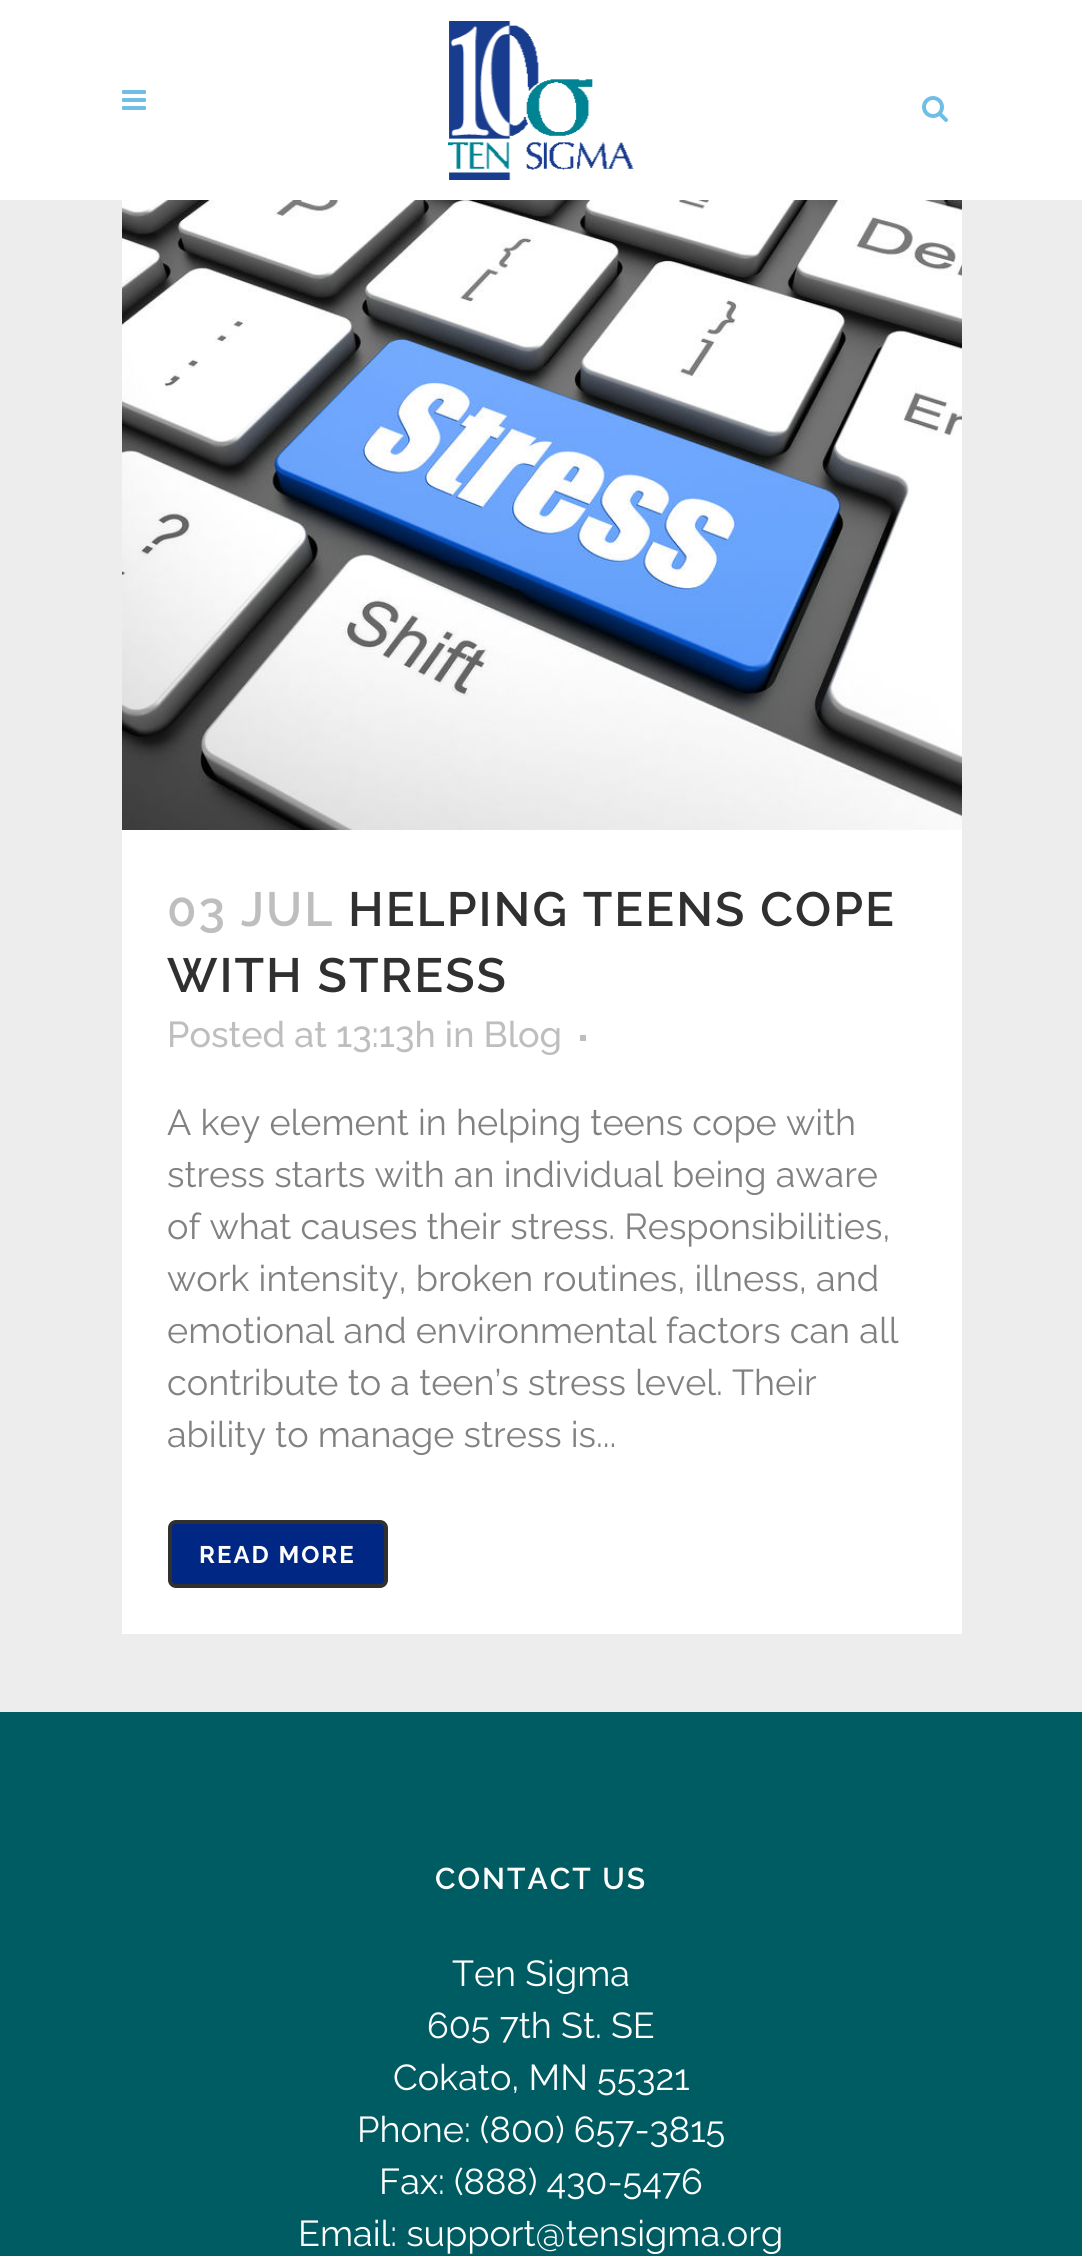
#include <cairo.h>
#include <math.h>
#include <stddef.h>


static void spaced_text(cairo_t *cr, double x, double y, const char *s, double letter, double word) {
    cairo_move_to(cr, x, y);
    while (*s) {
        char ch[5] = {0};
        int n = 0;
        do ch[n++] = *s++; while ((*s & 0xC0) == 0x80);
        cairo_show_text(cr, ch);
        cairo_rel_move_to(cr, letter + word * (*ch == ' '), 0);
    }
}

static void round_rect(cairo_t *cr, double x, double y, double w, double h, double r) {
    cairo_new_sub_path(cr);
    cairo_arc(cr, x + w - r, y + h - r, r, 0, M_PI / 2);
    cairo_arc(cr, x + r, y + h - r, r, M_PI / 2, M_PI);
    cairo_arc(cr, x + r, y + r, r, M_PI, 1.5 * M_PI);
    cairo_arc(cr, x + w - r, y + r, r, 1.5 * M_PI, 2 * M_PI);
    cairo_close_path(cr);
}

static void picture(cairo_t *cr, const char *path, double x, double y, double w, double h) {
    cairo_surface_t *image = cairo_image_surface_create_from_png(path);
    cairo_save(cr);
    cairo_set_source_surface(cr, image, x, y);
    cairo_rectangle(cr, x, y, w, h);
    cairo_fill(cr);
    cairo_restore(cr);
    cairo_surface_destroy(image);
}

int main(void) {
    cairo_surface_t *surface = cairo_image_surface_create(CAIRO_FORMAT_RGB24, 1082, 2256);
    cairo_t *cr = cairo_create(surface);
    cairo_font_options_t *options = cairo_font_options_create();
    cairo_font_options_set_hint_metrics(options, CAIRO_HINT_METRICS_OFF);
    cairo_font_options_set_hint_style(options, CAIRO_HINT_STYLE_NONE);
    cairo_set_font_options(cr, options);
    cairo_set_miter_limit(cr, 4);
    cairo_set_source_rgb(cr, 0.929, 0.929, 0.929);
    cairo_paint(cr);
    cairo_set_source_rgb(cr, 1, 1, 1);
    cairo_rectangle(cr, 0, 0, 1082, 200);
    cairo_fill(cr);
    picture(cr, "img1.png", 122, 90, 24, 20);
    picture(cr, "img2.png", 448, 21, 186, 159);
    picture(cr, "img3.png", 922, 96, 26, 26);
    picture(cr, "img4.png", 122, 200, 840, 630);
    cairo_rectangle(cr, 122, 830, 840, 804);
    cairo_fill(cr);
    cairo_select_font_face(cr, "Raleway SemiBold", CAIRO_FONT_SLANT_NORMAL, CAIRO_FONT_WEIGHT_NORMAL);
    cairo_set_font_size(cr, 48);
    cairo_set_source_rgb(cr, 0.745, 0.745, 0.745);
    spaced_text(cr, 167, 926, "03 JUL", 2, 0);
    cairo_set_source_rgb(cr, 0.188, 0.188, 0.188);
    spaced_text(cr, 348, 926, "HELPING TEENS COPE", 2, 0);
    spaced_text(cr, 167, 992, "WITH STRESS", 2, 0);
    cairo_select_font_face(cr, "Raleway Medium", CAIRO_FONT_SLANT_NORMAL, CAIRO_FONT_WEIGHT_NORMAL);
    cairo_set_font_size(cr, 36);
    cairo_set_source_rgb(cr, 0.745, 0.745, 0.745);
    cairo_move_to(cr, 167, 1047);
    cairo_show_text(cr, "Posted at 13:13h in Blog");
    cairo_rectangle(cr, 580, 1035, 6, 6);
    cairo_fill(cr);
    cairo_select_font_face(cr, "Raleway", CAIRO_FONT_SLANT_NORMAL, CAIRO_FONT_WEIGHT_NORMAL);
    cairo_set_source_rgb(cr, 0.506, 0.506, 0.506);
    cairo_move_to(cr, 167, 1135);
    cairo_show_text(cr, "A key element in helping teens cope with");
    cairo_move_to(cr, 167, 1187);
    cairo_show_text(cr, "stress starts with an individual being aware");
    cairo_move_to(cr, 167, 1239);
    cairo_show_text(cr, "of what causes their stress. Responsibilities,");
    cairo_move_to(cr, 167, 1291);
    cairo_show_text(cr, "work intensity, broken routines, illness, and");
    cairo_move_to(cr, 167, 1343);
    cairo_show_text(cr, "emotional and environmental factors can all");
    cairo_move_to(cr, 167, 1395);
    cairo_show_text(cr, "contribute to a teen’s stress level. Their");
    cairo_move_to(cr, 167, 1447);
    cairo_show_text(cr, "ability to manage stress is...");
    cairo_set_source_rgb(cr, 0, 0.153, 0.518);
    round_rect(cr, 170, 1522, 216, 64, 6);
    cairo_fill_preserve(cr);
    cairo_set_source_rgb(cr, 0.188, 0.188, 0.188);
    cairo_set_line_width(cr, 4);
    cairo_stroke(cr);
    cairo_select_font_face(cr, "Raleway", CAIRO_FONT_SLANT_NORMAL, CAIRO_FONT_WEIGHT_BOLD);
    cairo_set_font_size(cr, 24);
    cairo_set_source_rgb(cr, 1, 1, 1);
    spaced_text(cr, 199, 1563, "READ MORE", 2, 0);
    cairo_set_source_rgb(cr, 0, 0.361, 0.388);
    cairo_rectangle(cr, 0, 1712, 1082, 544);
    cairo_fill(cr);
    cairo_select_font_face(cr, "Raleway SemiBold", CAIRO_FONT_SLANT_NORMAL, CAIRO_FONT_WEIGHT_NORMAL);
    cairo_set_font_size(cr, 30);
    cairo_set_source_rgb(cr, 1, 1, 1);
    spaced_text(cr, 435, 1889, "CONTACT US", 2, 0);
    cairo_select_font_face(cr, "Raleway", CAIRO_FONT_SLANT_NORMAL, CAIRO_FONT_WEIGHT_NORMAL);
    cairo_set_font_size(cr, 36);
    cairo_move_to(cr, 452, 1986);
    cairo_show_text(cr, "Ten Sigma");
    cairo_move_to(cr, 427, 2038);
    cairo_show_text(cr, "605 7th St. SE");
    cairo_move_to(cr, 393, 2090);
    cairo_show_text(cr, "Cokato, MN 55321");
    cairo_move_to(cr, 357, 2142);
    cairo_show_text(cr, "Phone: (800) 657-3815");
    cairo_move_to(cr, 379, 2194);
    cairo_show_text(cr, "Fax: (888) 430-5476");
    cairo_move_to(cr, 298, 2246);
    cairo_show_text(cr, "Email: support@tensigma.org");
    cairo_surface_write_to_png(surface, "page.png");
    cairo_font_options_destroy(options);
    cairo_destroy(cr);
    cairo_surface_destroy(surface);
    return 0;
}
